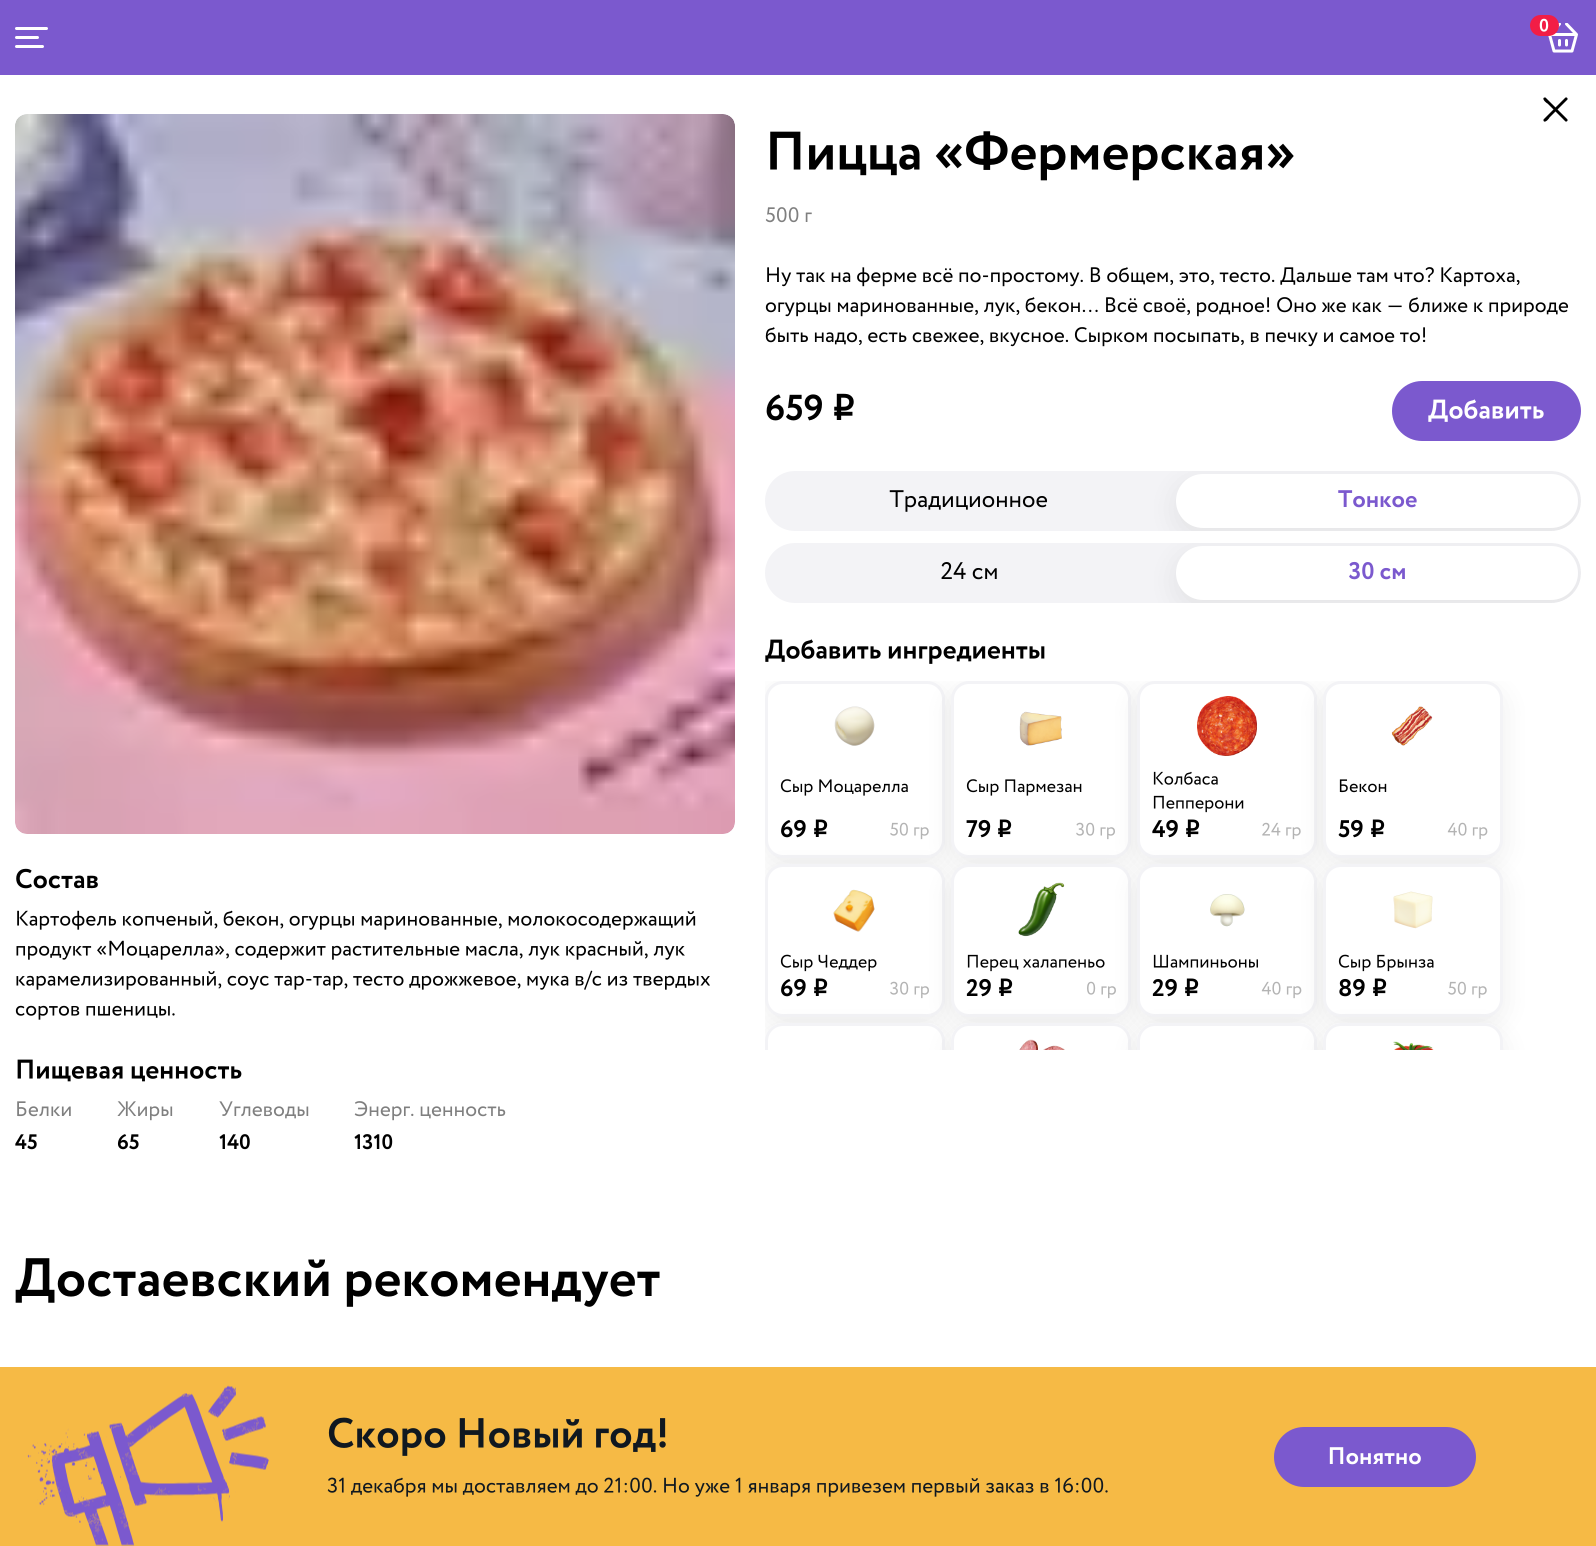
#include <cairo.h>
#include <math.h>
#include <stddef.h>


static void round_rect(cairo_t *cr, double x, double y, double w, double h, double r) {
    cairo_new_sub_path(cr);
    cairo_arc(cr, x + w - r, y + h - r, r, 0, M_PI / 2);
    cairo_arc(cr, x + r, y + h - r, r, M_PI / 2, M_PI);
    cairo_arc(cr, x + r, y + r, r, M_PI, 1.5 * M_PI);
    cairo_arc(cr, x + w - r, y + r, r, 1.5 * M_PI, 2 * M_PI);
    cairo_close_path(cr);
}

static void shadow(cairo_t *cr, double x, double y, double w, double h, double r, double blur, double alpha) {
    cairo_push_group_with_content(cr, CAIRO_CONTENT_ALPHA);
    cairo_set_operator(cr, CAIRO_OPERATOR_SOURCE);
    for (int i = 15; i >= -15 && fmin(w, h) + blur * i / 3 > 0; i -= 2) {
        double e = blur * i / 6;
        cairo_set_source_rgba(cr, 0, 0, 0, alpha * erfc((i - 1) / 8.5) / 2);
        round_rect(cr, x - e, y - e, w + 2 * e, h + 2 * e, fmax(0, fmin(r + e + blur * .6, fmin(w, h) / 2 + e)));
        cairo_fill(cr);
    }
    cairo_pattern_t *soft = cairo_pop_group(cr);
    cairo_mask(cr, soft);
    cairo_pattern_destroy(soft);
}

static void picture(cairo_t *cr, const char *path, double x, double y, double w, double h) {
    cairo_surface_t *image = cairo_image_surface_create_from_png(path);
    cairo_save(cr);
    cairo_set_source_surface(cr, image, x, y);
    cairo_rectangle(cr, x, y, w, h);
    cairo_fill(cr);
    cairo_restore(cr);
    cairo_surface_destroy(image);
}

int main(void) {
    cairo_surface_t *surface = cairo_image_surface_create(CAIRO_FORMAT_RGB24, 1596, 1546);
    cairo_t *cr = cairo_create(surface);
    cairo_font_options_t *options = cairo_font_options_create();
    cairo_font_options_set_hint_metrics(options, CAIRO_HINT_METRICS_OFF);
    cairo_font_options_set_hint_style(options, CAIRO_HINT_STYLE_NONE);
    cairo_set_font_options(cr, options);
    cairo_set_miter_limit(cr, 4);
    cairo_set_source_rgb(cr, 1, 1, 1);
    cairo_paint(cr);
    cairo_set_source_rgb(cr, 0.482, 0.349, 0.808);
    cairo_rectangle(cr, 0, 0, 1596, 75);
    cairo_fill(cr);
    cairo_set_source_rgb(cr, 1, 1, 1);
    round_rect(cr, 15, 27, 33, 3, 1.5);
    cairo_fill(cr);
    round_rect(cr, 15, 36, 24, 3, 1.5);
    cairo_fill(cr);
    round_rect(cr, 15, 45, 29, 3, 1.5);
    cairo_fill(cr);
    cairo_save(cr);
    cairo_rectangle(cr, 1548, 23, 30, 30);
    cairo_clip(cr);
    cairo_new_path(cr);
    cairo_move_to(cr, 1549.5, 34.5);
    cairo_line_to(cr, 1554, 51);
    cairo_line_to(cr, 1572, 51);
    cairo_line_to(cr, 1576.5, 34.5);
    cairo_move_to(cr, 1549.5, 34.5);
    cairo_line_to(cr, 1576.5, 34.5);
    cairo_move_to(cr, 1549.5, 34.5);
    cairo_line_to(cr, 1559.5, 24);
    cairo_move_to(cr, 1576.5, 34.5);
    cairo_line_to(cr, 1566.5, 24);
    cairo_set_line_width(cr, 3);
    cairo_set_line_cap(cr, CAIRO_LINE_CAP_ROUND);
    cairo_set_line_join(cr, CAIRO_LINE_JOIN_ROUND);
    cairo_stroke(cr);
    cairo_restore(cr);
    cairo_set_source_rgb(cr, 0.949, 0.114, 0.275);
    round_rect(cr, 1530, 15, 29, 21, 10.5);
    cairo_fill(cr);
    picture(cr, "img1.png", 1539, 18, 10, 14);
    cairo_new_path(cr);
    cairo_move_to(cr, 1559.5, 40.5);
    cairo_line_to(cr, 1559.5, 45);
    cairo_move_to(cr, 1566.5, 40.5);
    cairo_line_to(cr, 1566.5, 45);
    cairo_set_source_rgb(cr, 1, 1, 1);
    cairo_set_line_width(cr, 3);
    cairo_set_line_cap(cr, CAIRO_LINE_CAP_ROUND);
    cairo_set_line_join(cr, CAIRO_LINE_JOIN_ROUND);
    cairo_stroke(cr);
    cairo_set_source_rgb(cr, 0, 0, 0);
    cairo_new_path(cr);
    cairo_move_to(cr, 1546, 98);
    cairo_line_to(cr, 1567.5, 119.5);
    cairo_curve_to(cr, 1568, 120.5, 1567, 122, 1565.5, 121.5);
    cairo_line_to(cr, 1547.5, 103.5);
    cairo_curve_to(cr, 1547, 103.5, 1542.5, 100, 1543.5, 98);
    cairo_curve_to(cr, 1544, 97.5, 1545.5, 97, 1546, 98);
    cairo_close_path(cr);
    cairo_fill(cr);
    cairo_new_path(cr);
    cairo_move_to(cr, 1544, 119);
    cairo_line_to(cr, 1565.5, 97.5);
    cairo_curve_to(cr, 1566.5, 97, 1568, 98, 1567.5, 99.5);
    cairo_line_to(cr, 1549.5, 117.5);
    cairo_curve_to(cr, 1549.5, 118, 1546, 122.5, 1544, 121.5);
    cairo_curve_to(cr, 1543.5, 121, 1543, 119.5, 1544, 119);
    cairo_close_path(cr);
    cairo_fill(cr);
    cairo_set_source_rgb(cr, 0.953, 0.953, 0.961);
    round_rect(cr, 15, 114, 720, 720, 12);
    cairo_fill(cr);
    picture(cr, "img2.png", 15, 114, 720, 720);
    picture(cr, "img3.png", 16, 868, 82, 21);
    picture(cr, "img4.png", 17, 910, 679, 20);
    picture(cr, "img5.png", 16, 940, 669, 20);
    picture(cr, "img6.png", 16, 970, 694, 20);
    picture(cr, "img7.png", 15, 1005, 160, 15);
    picture(cr, "img8.png", 17, 1059, 225, 23);
    picture(cr, "img9.png", 17, 1101, 54, 16);
    picture(cr, "img10.png", 15, 1134, 22, 16);
    picture(cr, "img11.png", 117, 1101, 56, 20);
    picture(cr, "img12.png", 117, 1134, 22, 16);
    picture(cr, "img13.png", 219, 1101, 90, 18);
    picture(cr, "img14.png", 219, 1134, 31, 16);
    picture(cr, "img15.png", 354, 1101, 152, 20);
    picture(cr, "img16.png", 354, 1134, 39, 16);
    picture(cr, "img17.png", 770, 131, 524, 50);
    picture(cr, "img18.png", 765, 207, 47, 16);
    picture(cr, "img19.png", 767, 267, 753, 20);
    picture(cr, "img20.png", 765, 297, 804, 20);
    picture(cr, "img21.png", 765, 327, 661, 20);
    picture(cr, "img22.png", 766, 394, 56, 27);
    cairo_select_font_face(cr, "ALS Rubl", CAIRO_FONT_SLANT_NORMAL, CAIRO_FONT_WEIGHT_BOLD);
    cairo_set_font_size(cr, 36);
    cairo_set_source_rgb(cr, 0, 0, 0);
    cairo_move_to(cr, 831, 420);
    cairo_show_text(cr, "i");
    cairo_set_source_rgb(cr, 0.482, 0.349, 0.808);
    round_rect(cr, 1392, 381, 189, 60, 30);
    cairo_fill(cr);
    picture(cr, "img23.png", 1428, 399, 116, 23);
    cairo_set_source_rgb(cr, 0.953, 0.953, 0.961);
    round_rect(cr, 765, 471, 816, 60, 30);
    cairo_fill(cr);
    picture(cr, "img24.png", 889, 490, 159, 22);
    cairo_save(cr);
    round_rect(cr, 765, 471, 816, 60, 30);
    cairo_clip(cr);
    cairo_set_source_rgb(cr, 0, 0, 0);
    shadow(cr, 1176, 482, 402, 54, 27, 15, 0.07);
    cairo_restore(cr);
    cairo_set_source_rgb(cr, 1, 1, 1);
    round_rect(cr, 1176, 474, 402, 54, 27);
    cairo_fill(cr);
    picture(cr, "img25.png", 1338, 490, 79, 18);
    cairo_set_source_rgb(cr, 0.953, 0.953, 0.961);
    round_rect(cr, 765, 543, 816, 60, 30);
    cairo_fill(cr);
    cairo_save(cr);
    round_rect(cr, 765, 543, 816, 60, 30);
    cairo_clip(cr);
    cairo_set_source_rgb(cr, 0, 0, 0);
    shadow(cr, 1176, 554, 402, 54, 27, 15, 0.07);
    cairo_restore(cr);
    cairo_set_source_rgb(cr, 1, 1, 1);
    round_rect(cr, 1176, 546, 402, 54, 27);
    cairo_fill(cr);
    picture(cr, "img26.png", 941, 562, 56, 18);
    picture(cr, "img27.png", 1349, 561, 56, 19);
    picture(cr, "img28.png", 765, 639, 280, 25);
    cairo_save(cr);
    cairo_rectangle(cr, 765, 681, 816, 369);
    cairo_clip(cr);
    cairo_set_source_rgb(cr, 0, 0, 0);
    shadow(cr, 765, 689, 180, 177, 18, 15, 0.07);
    cairo_restore(cr);
    round_rect(cr, 766.5, 682.5, 177, 174, 16.5);
    cairo_fill_preserve(cr);
    cairo_set_source_rgb(cr, 0.953, 0.953, 0.961);
    cairo_set_line_cap(cr, CAIRO_LINE_CAP_BUTT);
    cairo_set_line_join(cr, CAIRO_LINE_JOIN_MITER);
    cairo_stroke(cr);
    picture(cr, "img29.png", 834, 706, 41, 40);
    picture(cr, "img30.png", 780, 779, 128, 17);
    picture(cr, "img31.png", 781, 819, 25, 19);
    cairo_set_font_size(cr, 24);
    cairo_set_source_rgb(cr, 0, 0, 0);
    cairo_move_to(cr, 812, 837);
    cairo_show_text(cr, "i");
    picture(cr, "img32.png", 890, 822, 39, 18);
    cairo_save(cr);
    cairo_rectangle(cr, 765, 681, 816, 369);
    cairo_clip(cr);
    cairo_set_source_rgb(cr, 0, 0, 0);
    shadow(cr, 951, 689, 180, 177, 18, 15, 0.07);
    cairo_restore(cr);
    cairo_set_source_rgb(cr, 1, 1, 1);
    round_rect(cr, 952.5, 682.5, 177, 174, 16.5);
    cairo_fill_preserve(cr);
    cairo_set_source_rgb(cr, 0.953, 0.953, 0.961);
    cairo_stroke(cr);
    picture(cr, "img33.png", 1019, 711, 43, 35);
    picture(cr, "img34.png", 966, 779, 116, 17);
    picture(cr, "img35.png", 966, 819, 25, 19);
    cairo_set_source_rgb(cr, 0, 0, 0);
    cairo_move_to(cr, 996, 837);
    cairo_show_text(cr, "i");
    picture(cr, "img36.png", 1076, 822, 39, 18);
    cairo_save(cr);
    cairo_rectangle(cr, 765, 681, 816, 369);
    cairo_clip(cr);
    cairo_set_source_rgb(cr, 0, 0, 0);
    shadow(cr, 1137, 689, 180, 177, 18, 15, 0.07);
    cairo_restore(cr);
    cairo_set_source_rgb(cr, 1, 1, 1);
    round_rect(cr, 1138.5, 682.5, 177, 174, 16.5);
    cairo_fill_preserve(cr);
    cairo_set_source_rgb(cr, 0.953, 0.953, 0.961);
    cairo_stroke(cr);
    picture(cr, "img37.png", 1197, 696, 60, 60);
    picture(cr, "img38.png", 1153, 771, 65, 14);
    picture(cr, "img39.png", 1153, 795, 91, 18);
    picture(cr, "img40.png", 1152, 819, 26, 19);
    cairo_set_source_rgb(cr, 0, 0, 0);
    cairo_move_to(cr, 1184, 837);
    cairo_show_text(cr, "i");
    picture(cr, "img41.png", 1262, 822, 39, 18);
    cairo_save(cr);
    cairo_rectangle(cr, 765, 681, 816, 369);
    cairo_clip(cr);
    cairo_set_source_rgb(cr, 0, 0, 0);
    shadow(cr, 1323, 689, 180, 177, 18, 15, 0.07);
    cairo_restore(cr);
    cairo_set_source_rgb(cr, 1, 1, 1);
    round_rect(cr, 1324.5, 682.5, 177, 174, 16.5);
    cairo_fill_preserve(cr);
    cairo_set_source_rgb(cr, 0.953, 0.953, 0.961);
    cairo_stroke(cr);
    picture(cr, "img42.png", 1391, 706, 42, 40);
    picture(cr, "img43.png", 1339, 779, 48, 14);
    picture(cr, "img44.png", 1338, 819, 25, 19);
    cairo_set_source_rgb(cr, 0, 0, 0);
    cairo_move_to(cr, 1369, 837);
    cairo_show_text(cr, "i");
    picture(cr, "img45.png", 1447, 822, 41, 18);
    cairo_save(cr);
    cairo_rectangle(cr, 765, 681, 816, 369);
    cairo_clip(cr);
    cairo_set_source_rgb(cr, 0, 0, 0);
    shadow(cr, 765, 872, 180, 153, 18, 15, 0.07);
    cairo_restore(cr);
    cairo_set_source_rgb(cr, 1, 1, 1);
    round_rect(cr, 766.5, 865.5, 177, 150, 16.5);
    cairo_fill_preserve(cr);
    cairo_set_source_rgb(cr, 0.953, 0.953, 0.961);
    cairo_stroke(cr);
    picture(cr, "img46.png", 833, 889, 42, 43);
    picture(cr, "img47.png", 780, 954, 97, 18);
    picture(cr, "img31.png", 781, 978, 25, 19);
    cairo_set_source_rgb(cr, 0, 0, 0);
    cairo_move_to(cr, 812, 996);
    cairo_show_text(cr, "i");
    picture(cr, "img36.png", 890, 981, 39, 18);
    cairo_set_source_rgb(cr, 0, 0, 0);
    shadow(cr, 951, 872, 180, 153, 18, 15, 0.07);
    cairo_set_source_rgb(cr, 1, 1, 1);
    round_rect(cr, 952.5, 865.5, 177, 150, 16.5);
    cairo_fill_preserve(cr);
    cairo_set_source_rgb(cr, 0.953, 0.953, 0.961);
    cairo_stroke(cr);
    picture(cr, "img48.png", 1018, 882, 47, 55);
    picture(cr, "img49.png", 967, 954, 138, 18);
    picture(cr, "img50.png", 966, 978, 25, 19);
    cairo_set_source_rgb(cr, 0, 0, 0);
    cairo_move_to(cr, 997, 996);
    cairo_show_text(cr, "i");
    picture(cr, "img51.png", 1087, 981, 29, 18);
    cairo_set_source_rgb(cr, 0, 0, 0);
    shadow(cr, 1137, 872, 180, 153, 18, 15, 0.07);
    cairo_set_source_rgb(cr, 1, 1, 1);
    round_rect(cr, 1138.5, 865.5, 177, 150, 16.5);
    cairo_fill_preserve(cr);
    cairo_set_source_rgb(cr, 0.953, 0.953, 0.961);
    cairo_stroke(cr);
    picture(cr, "img52.png", 1210, 894, 35, 33);
    picture(cr, "img53.png", 1153, 954, 105, 14);
    picture(cr, "img50.png", 1152, 978, 25, 19);
    cairo_set_source_rgb(cr, 0, 0, 0);
    cairo_move_to(cr, 1183, 996);
    cairo_show_text(cr, "i");
    picture(cr, "img45.png", 1261, 981, 41, 18);
    cairo_set_source_rgb(cr, 0, 0, 0);
    shadow(cr, 1323, 872, 180, 153, 18, 15, 0.07);
    cairo_set_source_rgb(cr, 1, 1, 1);
    round_rect(cr, 1324.5, 865.5, 177, 150, 16.5);
    cairo_fill_preserve(cr);
    cairo_set_source_rgb(cr, 0.953, 0.953, 0.961);
    cairo_stroke(cr);
    picture(cr, "img54.png", 1393, 891, 40, 38);
    picture(cr, "img55.png", 1338, 954, 96, 18);
    picture(cr, "img56.png", 1339, 978, 26, 19);
    cairo_set_source_rgb(cr, 0, 0, 0);
    cairo_move_to(cr, 1371, 996);
    cairo_show_text(cr, "i");
    picture(cr, "img32.png", 1448, 981, 39, 18);
    cairo_save(cr);
    cairo_rectangle(cr, 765, 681, 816, 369);
    cairo_clip(cr);
    cairo_set_source_rgb(cr, 0, 0, 0);
    shadow(cr, 765, 1031, 180, 201, 18, 15, 0.07);
    cairo_restore(cr);
    cairo_set_source_rgb(cr, 1, 1, 1);
    cairo_new_path(cr);
    cairo_move_to(cr, 783, 1023);
    cairo_line_to(cr, 927, 1023);
    cairo_curve_to(cr, 937, 1023, 945, 1031, 945, 1041);
    cairo_line_to(cr, 945, 1050);
    cairo_line_to(cr, 765, 1050);
    cairo_line_to(cr, 765, 1041);
    cairo_curve_to(cr, 765, 1031, 773, 1023, 783, 1023);
    cairo_close_path(cr);
    cairo_fill(cr);
    cairo_save(cr);
    cairo_rectangle(cr, 765, 681, 816, 369);
    cairo_clip(cr);
    round_rect(cr, 766.5, 1024.5, 177, 198, 16.5);
    cairo_set_source_rgb(cr, 0.953, 0.953, 0.961);
    cairo_stroke(cr);
    cairo_restore(cr);
    cairo_save(cr);
    cairo_rectangle(cr, 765, 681, 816, 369);
    cairo_clip(cr);
    cairo_set_source_rgb(cr, 0, 0, 0);
    shadow(cr, 951, 1031, 180, 201, 18, 15, 0.07);
    cairo_restore(cr);
    cairo_new_path(cr);
    cairo_move_to(cr, 969, 1023);
    cairo_line_to(cr, 1113, 1023);
    cairo_curve_to(cr, 1123, 1023, 1131, 1031, 1131, 1041);
    cairo_line_to(cr, 1131, 1050);
    cairo_line_to(cr, 951, 1050);
    cairo_line_to(cr, 951, 1041);
    cairo_curve_to(cr, 951, 1031, 959, 1023, 969, 1023);
    cairo_close_path(cr);
    cairo_fill(cr);
    cairo_save(cr);
    cairo_rectangle(cr, 765, 681, 816, 369);
    cairo_clip(cr);
    round_rect(cr, 952.5, 1024.5, 177, 198, 16.5);
    cairo_set_source_rgb(cr, 0.953, 0.953, 0.961);
    cairo_stroke(cr);
    cairo_restore(cr);
    picture(cr, "img57.png", 1019, 1039, 46, 11);
    cairo_save(cr);
    cairo_rectangle(cr, 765, 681, 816, 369);
    cairo_clip(cr);
    cairo_set_source_rgb(cr, 0, 0, 0);
    shadow(cr, 1137, 1031, 180, 201, 18, 15, 0.07);
    cairo_restore(cr);
    cairo_new_path(cr);
    cairo_move_to(cr, 1155, 1023);
    cairo_line_to(cr, 1299, 1023);
    cairo_curve_to(cr, 1309, 1023, 1317, 1031, 1317, 1041);
    cairo_line_to(cr, 1317, 1050);
    cairo_line_to(cr, 1137, 1050);
    cairo_line_to(cr, 1137, 1041);
    cairo_curve_to(cr, 1137, 1031, 1145, 1023, 1155, 1023);
    cairo_close_path(cr);
    cairo_fill(cr);
    cairo_save(cr);
    cairo_rectangle(cr, 765, 681, 816, 369);
    cairo_clip(cr);
    round_rect(cr, 1138.5, 1024.5, 177, 198, 16.5);
    cairo_set_source_rgb(cr, 0.953, 0.953, 0.961);
    cairo_stroke(cr);
    cairo_restore(cr);
    cairo_save(cr);
    cairo_rectangle(cr, 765, 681, 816, 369);
    cairo_clip(cr);
    cairo_set_source_rgb(cr, 0, 0, 0);
    shadow(cr, 1323, 1031, 180, 201, 18, 15, 0.07);
    cairo_restore(cr);
    cairo_new_path(cr);
    cairo_move_to(cr, 1341, 1023);
    cairo_line_to(cr, 1485, 1023);
    cairo_curve_to(cr, 1495, 1023, 1503, 1031, 1503, 1041);
    cairo_line_to(cr, 1503, 1050);
    cairo_line_to(cr, 1323, 1050);
    cairo_line_to(cr, 1323, 1041);
    cairo_curve_to(cr, 1323, 1031, 1331, 1023, 1341, 1023);
    cairo_close_path(cr);
    cairo_fill(cr);
    cairo_save(cr);
    cairo_rectangle(cr, 765, 681, 816, 369);
    cairo_clip(cr);
    round_rect(cr, 1324.5, 1024.5, 177, 198, 16.5);
    cairo_set_source_rgb(cr, 0.953, 0.953, 0.961);
    cairo_stroke(cr);
    cairo_restore(cr);
    picture(cr, "img58.png", 1393, 1041, 41, 9);
    picture(cr, "img59.png", 15, 1258, 645, 49);
    cairo_set_source_rgb(cr, 0.961, 0.729, 0.271);
    cairo_rectangle(cr, 0, 1367, 1596, 179);
    cairo_fill(cr);
    picture(cr, "img60.png", 27, 1385, 242, 161);
    picture(cr, "img61.png", 328, 1417, 338, 39);
    picture(cr, "img62.png", 327, 1477, 781, 20);
    cairo_set_source_rgb(cr, 0.482, 0.349, 0.808);
    round_rect(cr, 1274, 1427, 202, 60, 30);
    cairo_fill(cr);
    picture(cr, "img63.png", 1329, 1447, 92, 18);
    cairo_surface_write_to_png(surface, "page.png");
    cairo_font_options_destroy(options);
    cairo_destroy(cr);
    cairo_surface_destroy(surface);
    return 0;
}
